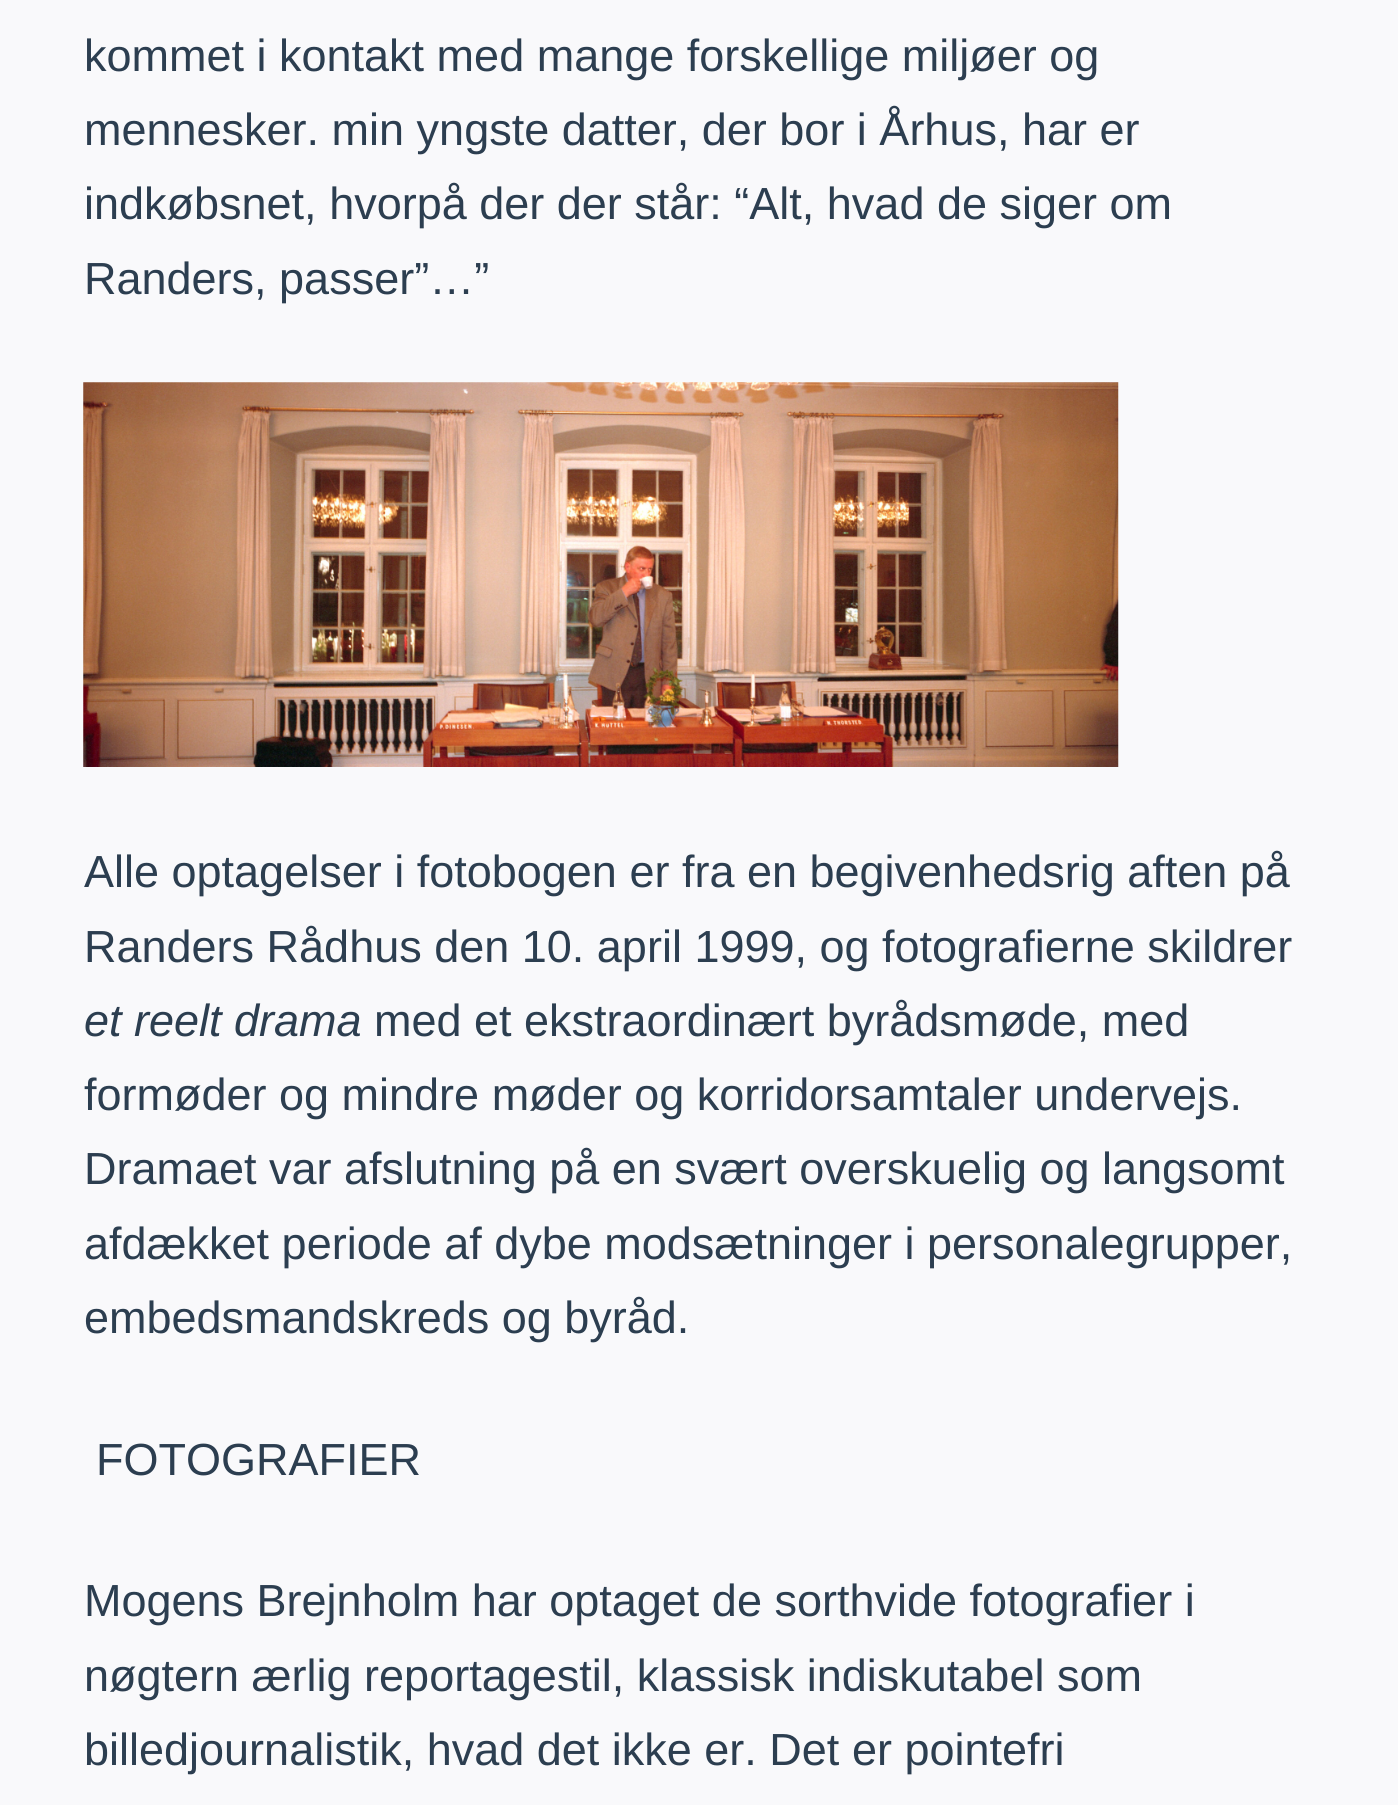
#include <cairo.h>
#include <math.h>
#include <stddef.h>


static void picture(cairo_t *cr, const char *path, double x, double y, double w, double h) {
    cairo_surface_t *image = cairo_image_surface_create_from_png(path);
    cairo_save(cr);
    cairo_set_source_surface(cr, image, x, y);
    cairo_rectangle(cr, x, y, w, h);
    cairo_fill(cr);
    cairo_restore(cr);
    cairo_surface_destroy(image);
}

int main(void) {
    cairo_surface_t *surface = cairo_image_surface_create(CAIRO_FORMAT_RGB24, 1398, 1805);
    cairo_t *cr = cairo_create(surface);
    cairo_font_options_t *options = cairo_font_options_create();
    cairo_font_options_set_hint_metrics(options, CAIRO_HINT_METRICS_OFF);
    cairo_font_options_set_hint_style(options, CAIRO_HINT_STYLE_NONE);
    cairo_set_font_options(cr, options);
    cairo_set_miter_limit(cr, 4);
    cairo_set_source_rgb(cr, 0.973, 0.976, 0.984);
    cairo_paint(cr);
    cairo_select_font_face(cr, "Liberation Sans", CAIRO_FONT_SLANT_NORMAL, CAIRO_FONT_WEIGHT_NORMAL);
    cairo_set_font_size(cr, 45);
    cairo_set_source_rgb(cr, 0.173, 0.243, 0.314);
    cairo_move_to(cr, 84, 71);
    cairo_show_text(cr, "kommet i kontakt med mange forskellige miljøer og");
    cairo_move_to(cr, 84, 145);
    cairo_show_text(cr, "mennesker. min yngste datter, der bor i Århus, har er");
    cairo_move_to(cr, 84, 219);
    cairo_show_text(cr, "indkøbsnet, hvorpå der der står: “Alt, hvad de siger om");
    cairo_move_to(cr, 84, 294);
    cairo_show_text(cr, "Randers, passer”…”");
    picture(cr, "img1.png", 83, 382, 1036, 385);
    cairo_move_to(cr, 84, 887);
    cairo_show_text(cr, "Alle optagelser i fotobogen er fra en begivenhedsrig aften på");
    cairo_move_to(cr, 84, 962);
    cairo_show_text(cr, "Randers Rådhus den 10. april 1999, og fotografierne skildrer");
    cairo_select_font_face(cr, "Liberation Sans", CAIRO_FONT_SLANT_ITALIC, CAIRO_FONT_WEIGHT_NORMAL);
    cairo_move_to(cr, 84, 1036);
    cairo_show_text(cr, "et reelt drama");
    cairo_select_font_face(cr, "Liberation Sans", CAIRO_FONT_SLANT_NORMAL, CAIRO_FONT_WEIGHT_NORMAL);
    cairo_move_to(cr, 374, 1036);
    cairo_show_text(cr, "med et ekstraordinært byrådsmøde, med");
    cairo_move_to(cr, 84, 1110);
    cairo_show_text(cr, "formøder og mindre møder og korridorsamtaler undervejs.");
    cairo_move_to(cr, 84, 1184);
    cairo_show_text(cr, "Dramaet var afslutning på en svært overskuelig og langsomt");
    cairo_move_to(cr, 84, 1259);
    cairo_show_text(cr, "afdækket periode af dybe modsætninger i personalegrupper,");
    cairo_move_to(cr, 84, 1333);
    cairo_show_text(cr, "embedsmandskreds og byråd.");
    cairo_move_to(cr, 96, 1475);
    cairo_show_text(cr, "FOTOGRAFIER");
    cairo_move_to(cr, 84, 1616);
    cairo_show_text(cr, "Mogens Brejnholm har optaget de sorthvide fotografier i");
    cairo_move_to(cr, 84, 1691);
    cairo_show_text(cr, "nøgtern ærlig reportagestil, klassisk indiskutabel som");
    cairo_move_to(cr, 84, 1765);
    cairo_show_text(cr, "billedjournalistik, hvad det ikke er. Det er pointefri");
    cairo_surface_write_to_png(surface, "page.png");
    cairo_font_options_destroy(options);
    cairo_destroy(cr);
    cairo_surface_destroy(surface);
    return 0;
}
